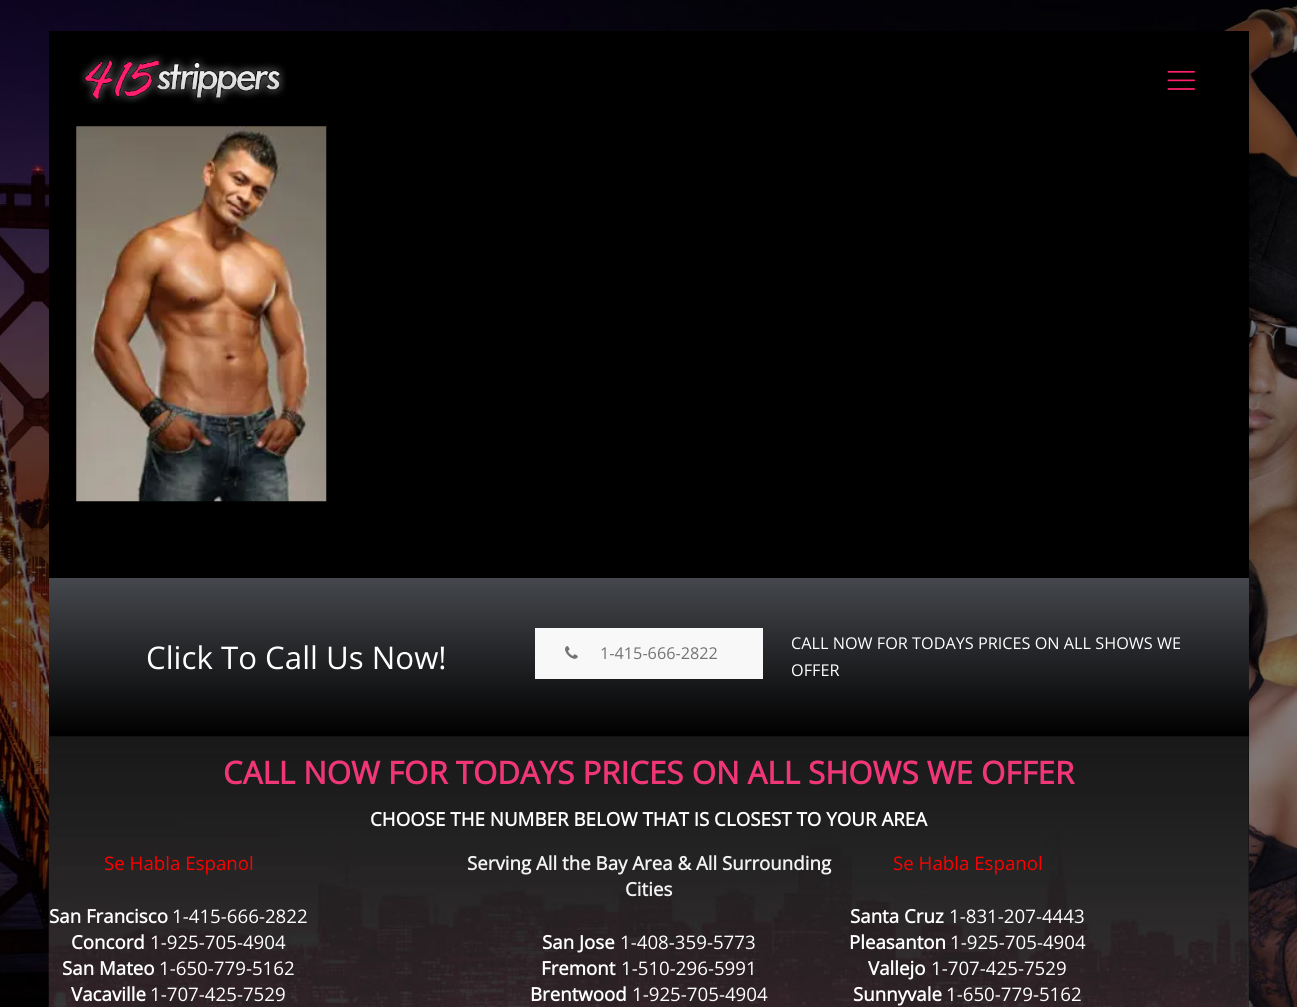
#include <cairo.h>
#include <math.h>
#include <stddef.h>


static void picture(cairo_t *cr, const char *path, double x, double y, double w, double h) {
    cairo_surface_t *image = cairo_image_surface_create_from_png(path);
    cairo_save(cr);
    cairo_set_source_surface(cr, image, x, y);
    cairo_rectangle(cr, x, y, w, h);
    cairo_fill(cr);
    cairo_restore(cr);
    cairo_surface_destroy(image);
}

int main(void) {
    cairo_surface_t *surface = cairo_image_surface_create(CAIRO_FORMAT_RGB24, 1297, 1007);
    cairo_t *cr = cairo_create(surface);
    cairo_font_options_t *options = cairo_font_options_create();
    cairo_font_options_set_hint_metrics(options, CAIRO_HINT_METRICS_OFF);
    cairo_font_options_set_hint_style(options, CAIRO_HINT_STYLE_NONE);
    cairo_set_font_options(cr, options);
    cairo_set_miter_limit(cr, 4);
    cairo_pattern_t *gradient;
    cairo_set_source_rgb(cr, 1, 1, 1);
    cairo_paint(cr);
    picture(cr, "img1.png", 0, 0, 1297, 1007);
    cairo_set_source_rgb(cr, 0, 0, 0);
    cairo_rectangle(cr, 49, 31, 1200, 976);
    cairo_fill(cr);
    picture(cr, "img2.png", 79, 54, 207, 50);
    picture(cr, "img3.png", 1167, 70, 28, 20);
    picture(cr, "img4.png", 76, 126, 251, 376);
    gradient = cairo_pattern_create_linear(649, 577, 649, 736);
    cairo_pattern_add_color_stop_rgba(gradient, 0, 0.271, 0.282, 0.302, 1);
    cairo_pattern_add_color_stop_rgba(gradient, 1, 0, 0, 0, 1);
    cairo_set_source(cr, gradient);
    cairo_pattern_destroy(gradient);
    cairo_rectangle(cr, 49, 578, 1200, 153);
    cairo_fill(cr);
    cairo_select_font_face(cr, "Open Sans", CAIRO_FONT_SLANT_NORMAL, CAIRO_FONT_WEIGHT_NORMAL);
    cairo_set_font_size(cr, 31.25);
    cairo_set_source_rgb(cr, 1, 1, 1);
    cairo_move_to(cr, 146, 669);
    cairo_show_text(cr, "Click To Call Us Now!");
    cairo_set_source_rgb(cr, 0.969, 0.969, 0.969);
    cairo_rectangle(cr, 535, 628, 228, 51);
    cairo_fill(cr);
    picture(cr, "img5.png", 565, 646, 13, 13);
    cairo_set_font_size(cr, 16.25);
    cairo_set_source_rgb(cr, 0.455, 0.455, 0.455);
    cairo_move_to(cr, 600, 659);
    cairo_show_text(cr, "1-415-666-2822");
    cairo_set_source_rgb(cr, 1, 1, 1);
    cairo_move_to(cr, 791, 649);
    cairo_show_text(cr, "CALL NOW FOR TODAYS PRICES ON ALL SHOWS WE");
    cairo_move_to(cr, 791, 676);
    cairo_show_text(cr, "OFFER");
    picture(cr, "img6.png", 48, 736, 1201, 271);
    cairo_select_font_face(cr, "Open Sans", CAIRO_FONT_SLANT_NORMAL, CAIRO_FONT_WEIGHT_BOLD);
    cairo_set_font_size(cr, 31.25);
    cairo_set_source_rgb(cr, 0.945, 0.212, 0.471);
    cairo_move_to(cr, 223, 784);
    cairo_show_text(cr, "CALL NOW FOR TODAYS PRICES ON ALL SHOWS WE OFFER");
    cairo_set_font_size(cr, 18.75);
    cairo_set_source_rgb(cr, 1, 1, 1);
    cairo_move_to(cr, 370, 826);
    cairo_show_text(cr, "CHOOSE THE NUMBER BELOW THAT IS CLOSEST TO YOUR AREA");
    cairo_select_font_face(cr, "Open Sans", CAIRO_FONT_SLANT_NORMAL, CAIRO_FONT_WEIGHT_NORMAL);
    cairo_set_font_size(cr, 18.7);
    cairo_set_source_rgb(cr, 1, 0, 0);
    cairo_move_to(cr, 104, 870);
    cairo_show_text(cr, "Se Habla Espanol");
    cairo_select_font_face(cr, "Open Sans", CAIRO_FONT_SLANT_NORMAL, CAIRO_FONT_WEIGHT_BOLD);
    cairo_set_source_rgb(cr, 1, 1, 1);
    cairo_move_to(cr, 49, 923);
    cairo_show_text(cr, "San Francisco");
    cairo_select_font_face(cr, "Open Sans", CAIRO_FONT_SLANT_NORMAL, CAIRO_FONT_WEIGHT_NORMAL);
    cairo_move_to(cr, 172, 923);
    cairo_show_text(cr, "1-415-666-2822");
    cairo_select_font_face(cr, "Open Sans", CAIRO_FONT_SLANT_NORMAL, CAIRO_FONT_WEIGHT_BOLD);
    cairo_move_to(cr, 71, 949);
    cairo_show_text(cr, "Concord");
    cairo_select_font_face(cr, "Open Sans", CAIRO_FONT_SLANT_NORMAL, CAIRO_FONT_WEIGHT_NORMAL);
    cairo_move_to(cr, 150, 949);
    cairo_show_text(cr, "1-925-705-4904");
    cairo_select_font_face(cr, "Open Sans", CAIRO_FONT_SLANT_NORMAL, CAIRO_FONT_WEIGHT_BOLD);
    cairo_move_to(cr, 62, 975);
    cairo_show_text(cr, "San Mateo");
    cairo_select_font_face(cr, "Open Sans", CAIRO_FONT_SLANT_NORMAL, CAIRO_FONT_WEIGHT_NORMAL);
    cairo_move_to(cr, 159, 975);
    cairo_show_text(cr, "1-650-779-5162");
    cairo_select_font_face(cr, "Open Sans", CAIRO_FONT_SLANT_NORMAL, CAIRO_FONT_WEIGHT_BOLD);
    cairo_move_to(cr, 71, 1001);
    cairo_show_text(cr, "Vacaville");
    cairo_select_font_face(cr, "Open Sans", CAIRO_FONT_SLANT_NORMAL, CAIRO_FONT_WEIGHT_NORMAL);
    cairo_move_to(cr, 150, 1001);
    cairo_show_text(cr, "1-707-425-7529");
    cairo_select_font_face(cr, "Open Sans", CAIRO_FONT_SLANT_NORMAL, CAIRO_FONT_WEIGHT_BOLD);
    cairo_set_source_rgb(cr, 0.949, 0.949, 0.949);
    cairo_move_to(cr, 467, 870);
    cairo_show_text(cr, "Serving All the Bay Area & All Surrounding");
    cairo_move_to(cr, 625, 896);
    cairo_show_text(cr, "Cities");
    cairo_set_source_rgb(cr, 1, 1, 1);
    cairo_move_to(cr, 542, 949);
    cairo_show_text(cr, "San Jose");
    cairo_select_font_face(cr, "Open Sans", CAIRO_FONT_SLANT_NORMAL, CAIRO_FONT_WEIGHT_NORMAL);
    cairo_move_to(cr, 620, 949);
    cairo_show_text(cr, "1-408-359-5773");
    cairo_select_font_face(cr, "Open Sans", CAIRO_FONT_SLANT_NORMAL, CAIRO_FONT_WEIGHT_BOLD);
    cairo_move_to(cr, 541, 975);
    cairo_show_text(cr, "Fremont");
    cairo_select_font_face(cr, "Open Sans", CAIRO_FONT_SLANT_NORMAL, CAIRO_FONT_WEIGHT_NORMAL);
    cairo_move_to(cr, 621, 975);
    cairo_show_text(cr, "1-510-296-5991");
    cairo_select_font_face(cr, "Open Sans", CAIRO_FONT_SLANT_NORMAL, CAIRO_FONT_WEIGHT_BOLD);
    cairo_move_to(cr, 530, 1001);
    cairo_show_text(cr, "Brentwood");
    cairo_select_font_face(cr, "Open Sans", CAIRO_FONT_SLANT_NORMAL, CAIRO_FONT_WEIGHT_NORMAL);
    cairo_move_to(cr, 632, 1001);
    cairo_show_text(cr, "1-925-705-4904");
    cairo_set_source_rgb(cr, 1, 0, 0);
    cairo_move_to(cr, 893, 870);
    cairo_show_text(cr, "Se Habla Espanol");
    cairo_select_font_face(cr, "Open Sans", CAIRO_FONT_SLANT_NORMAL, CAIRO_FONT_WEIGHT_BOLD);
    cairo_set_source_rgb(cr, 1, 1, 1);
    cairo_move_to(cr, 850, 923);
    cairo_show_text(cr, "Santa Cruz");
    cairo_select_font_face(cr, "Open Sans", CAIRO_FONT_SLANT_NORMAL, CAIRO_FONT_WEIGHT_NORMAL);
    cairo_move_to(cr, 949, 923);
    cairo_show_text(cr, "1-831-207-4443");
    cairo_select_font_face(cr, "Open Sans", CAIRO_FONT_SLANT_NORMAL, CAIRO_FONT_WEIGHT_BOLD);
    cairo_move_to(cr, 849, 949);
    cairo_show_text(cr, "Pleasanton");
    cairo_select_font_face(cr, "Open Sans", CAIRO_FONT_SLANT_NORMAL, CAIRO_FONT_WEIGHT_NORMAL);
    cairo_move_to(cr, 950, 949);
    cairo_show_text(cr, "1-925-705-4904");
    cairo_select_font_face(cr, "Open Sans", CAIRO_FONT_SLANT_NORMAL, CAIRO_FONT_WEIGHT_BOLD);
    cairo_move_to(cr, 868, 975);
    cairo_show_text(cr, "Vallejo");
    cairo_select_font_face(cr, "Open Sans", CAIRO_FONT_SLANT_NORMAL, CAIRO_FONT_WEIGHT_NORMAL);
    cairo_move_to(cr, 931, 975);
    cairo_show_text(cr, "1-707-425-7529");
    cairo_select_font_face(cr, "Open Sans", CAIRO_FONT_SLANT_NORMAL, CAIRO_FONT_WEIGHT_BOLD);
    cairo_move_to(cr, 853, 1001);
    cairo_show_text(cr, "Sunnyvale");
    cairo_select_font_face(cr, "Open Sans", CAIRO_FONT_SLANT_NORMAL, CAIRO_FONT_WEIGHT_NORMAL);
    cairo_move_to(cr, 946, 1001);
    cairo_show_text(cr, "1-650-779-5162");
    cairo_surface_write_to_png(surface, "page.png");
    cairo_font_options_destroy(options);
    cairo_destroy(cr);
    cairo_surface_destroy(surface);
    return 0;
}
